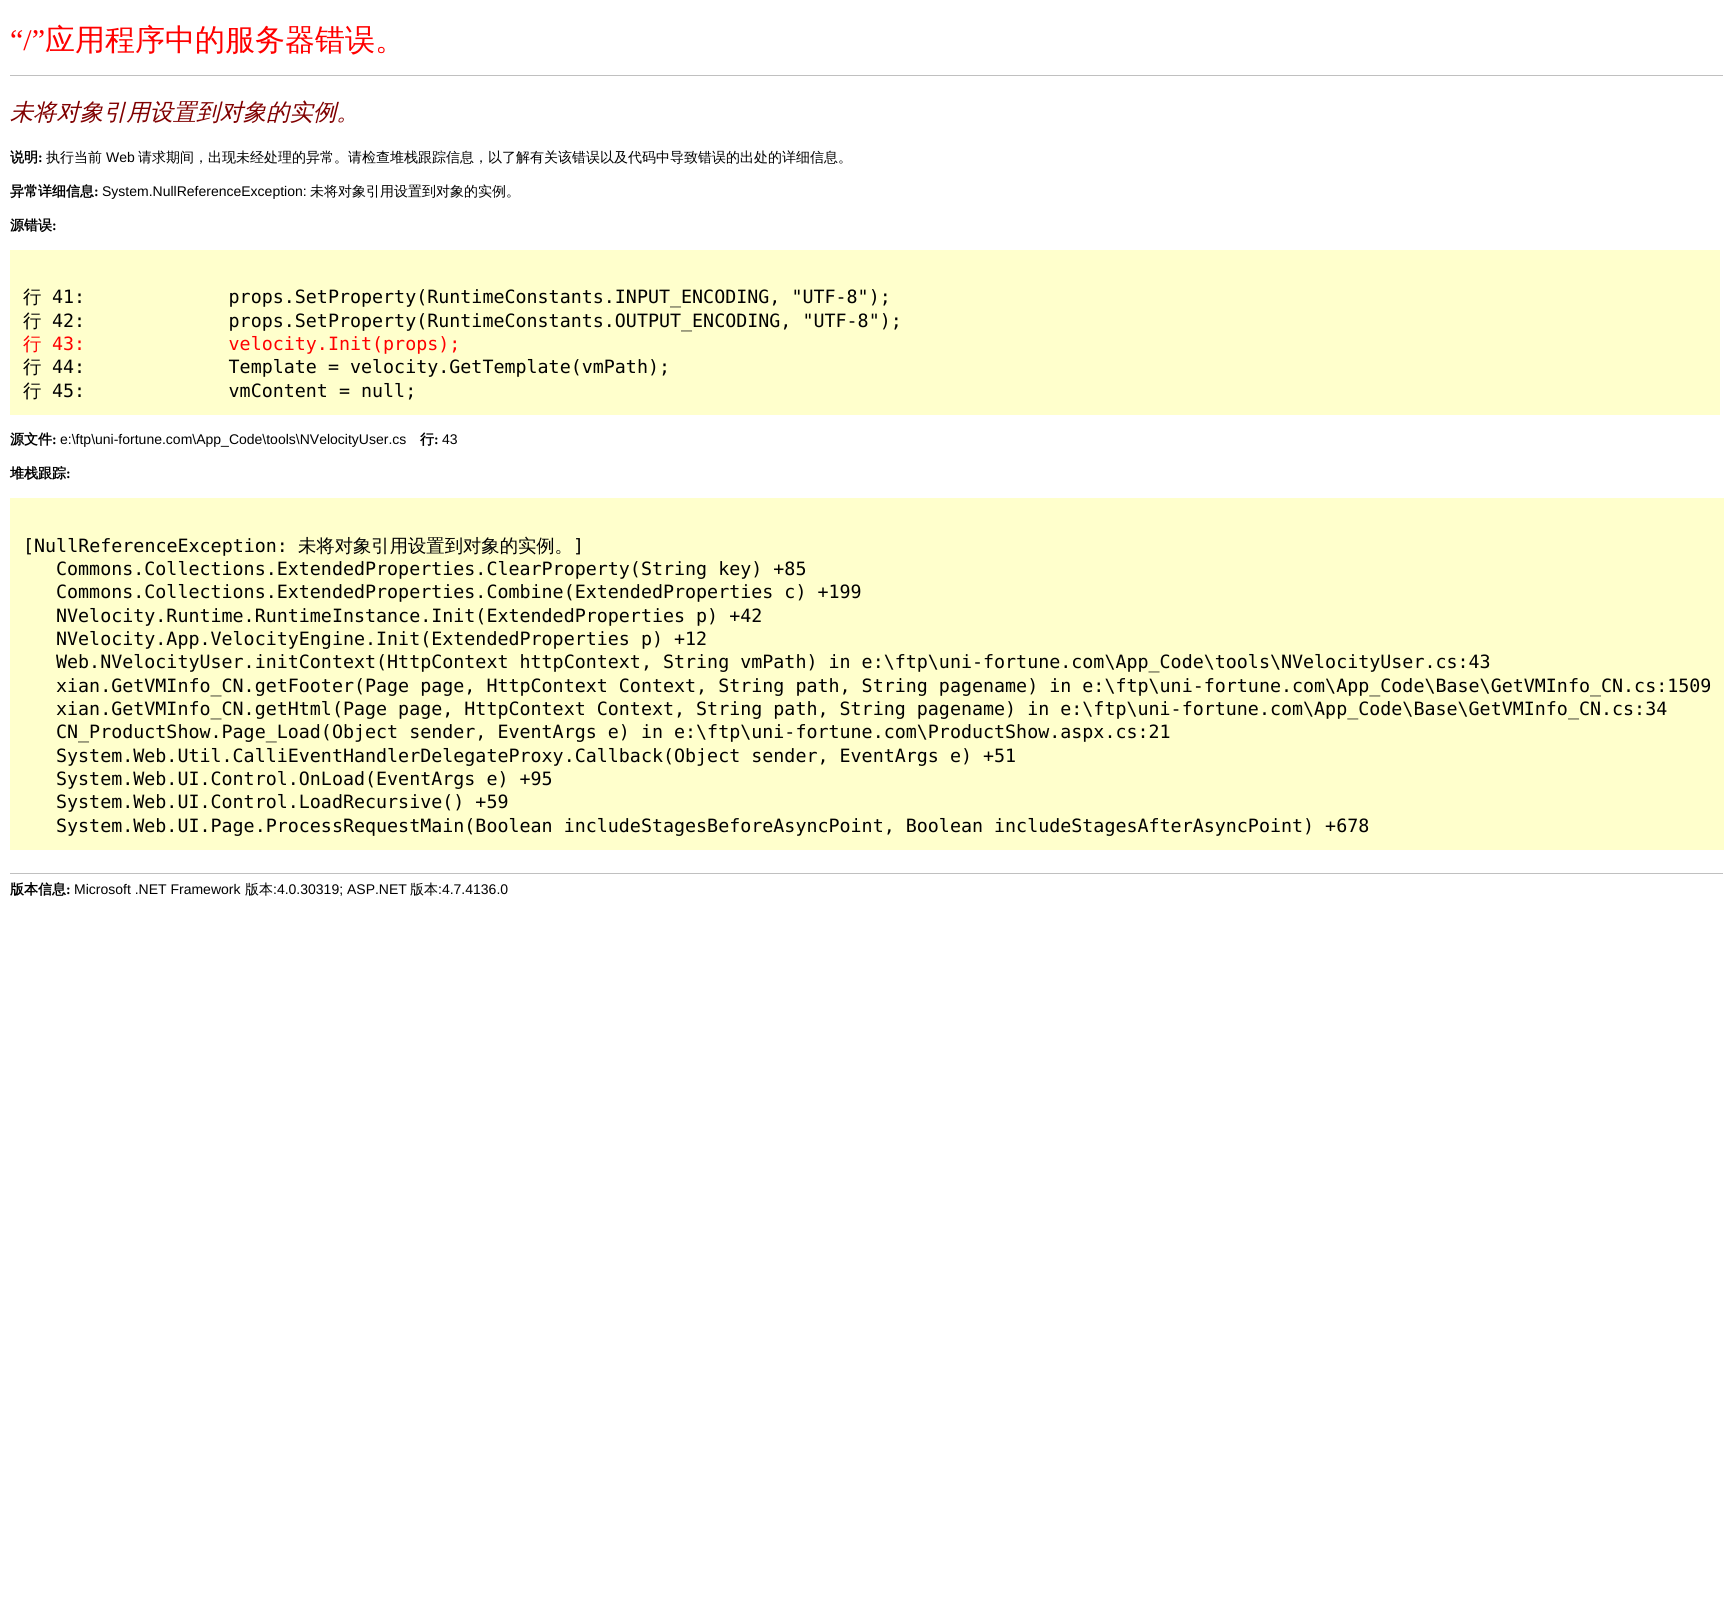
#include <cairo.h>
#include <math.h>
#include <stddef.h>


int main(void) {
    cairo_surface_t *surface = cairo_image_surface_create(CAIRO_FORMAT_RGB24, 1730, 1600);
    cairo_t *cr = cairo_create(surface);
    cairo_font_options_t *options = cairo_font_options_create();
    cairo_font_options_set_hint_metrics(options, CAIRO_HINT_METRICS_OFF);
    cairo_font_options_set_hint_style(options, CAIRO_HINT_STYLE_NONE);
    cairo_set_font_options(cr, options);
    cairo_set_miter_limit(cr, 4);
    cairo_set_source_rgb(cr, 1, 1, 1);
    cairo_paint(cr);
    cairo_select_font_face(cr, "Liberation Serif", CAIRO_FONT_SLANT_NORMAL, CAIRO_FONT_WEIGHT_NORMAL);
    cairo_set_font_size(cr, 30);
    cairo_set_source_rgb(cr, 1, 0, 0);
    cairo_move_to(cr, 10, 50);
    cairo_show_text(cr, "“/”");
    cairo_select_font_face(cr, "WenQuanYi Zen Hei Medium", CAIRO_FONT_SLANT_NORMAL, CAIRO_FONT_WEIGHT_NORMAL);
    cairo_move_to(cr, 45, 50);
    cairo_show_text(cr, "应用程序中的服务器错误。");
    cairo_set_source_rgb(cr, 0.753, 0.753, 0.753);
    cairo_rectangle(cr, 10, 75, 1713, 1);
    cairo_fill(cr);
    cairo_select_font_face(cr, "WenQuanYi Zen Hei Medium", CAIRO_FONT_SLANT_ITALIC, CAIRO_FONT_WEIGHT_NORMAL);
    cairo_set_font_size(cr, 23.3);
    cairo_set_source_rgb(cr, 0.502, 0, 0);
    cairo_move_to(cr, 10, 120);
    cairo_show_text(cr, "未将对象引用设置到对象的实例。");
    cairo_select_font_face(cr, "WenQuanYi Zen Hei", CAIRO_FONT_SLANT_NORMAL, CAIRO_FONT_WEIGHT_BOLD);
    cairo_set_font_size(cr, 14);
    cairo_set_source_rgb(cr, 0, 0, 0);
    cairo_move_to(cr, 10, 162);
    cairo_show_text(cr, "说明");
    cairo_select_font_face(cr, "Liberation Serif", CAIRO_FONT_SLANT_NORMAL, CAIRO_FONT_WEIGHT_BOLD);
    cairo_move_to(cr, 38, 162);
    cairo_show_text(cr, ":");
    cairo_select_font_face(cr, "WenQuanYi Zen Hei Medium", CAIRO_FONT_SLANT_NORMAL, CAIRO_FONT_WEIGHT_NORMAL);
    cairo_move_to(cr, 46, 162);
    cairo_show_text(cr, "执行当前");
    cairo_select_font_face(cr, "Liberation Sans", CAIRO_FONT_SLANT_NORMAL, CAIRO_FONT_WEIGHT_NORMAL);
    cairo_move_to(cr, 106, 162);
    cairo_show_text(cr, "Web");
    cairo_select_font_face(cr, "WenQuanYi Zen Hei Medium", CAIRO_FONT_SLANT_NORMAL, CAIRO_FONT_WEIGHT_NORMAL);
    cairo_move_to(cr, 138, 162);
    cairo_show_text(cr, "请求期间，出现未经处理的异常。请检查堆栈跟踪信息，以了解有关该错误以及代码中导致错误的出处的详细信息。");
    cairo_select_font_face(cr, "WenQuanYi Zen Hei", CAIRO_FONT_SLANT_NORMAL, CAIRO_FONT_WEIGHT_BOLD);
    cairo_move_to(cr, 10, 196);
    cairo_show_text(cr, "异常详细信息");
    cairo_select_font_face(cr, "Liberation Serif", CAIRO_FONT_SLANT_NORMAL, CAIRO_FONT_WEIGHT_BOLD);
    cairo_move_to(cr, 94, 196);
    cairo_show_text(cr, ":");
    cairo_select_font_face(cr, "Liberation Sans", CAIRO_FONT_SLANT_NORMAL, CAIRO_FONT_WEIGHT_NORMAL);
    cairo_move_to(cr, 102, 196);
    cairo_show_text(cr, "System.NullReferenceException:");
    cairo_select_font_face(cr, "WenQuanYi Zen Hei Medium", CAIRO_FONT_SLANT_NORMAL, CAIRO_FONT_WEIGHT_NORMAL);
    cairo_move_to(cr, 310, 196);
    cairo_show_text(cr, "未将对象引用设置到对象的实例。");
    cairo_select_font_face(cr, "WenQuanYi Zen Hei", CAIRO_FONT_SLANT_NORMAL, CAIRO_FONT_WEIGHT_BOLD);
    cairo_move_to(cr, 10, 230);
    cairo_show_text(cr, "源错误");
    cairo_select_font_face(cr, "Liberation Serif", CAIRO_FONT_SLANT_NORMAL, CAIRO_FONT_WEIGHT_BOLD);
    cairo_move_to(cr, 52, 230);
    cairo_show_text(cr, ":");
    cairo_set_source_rgb(cr, 1, 1, 0.8);
    cairo_rectangle(cr, 10, 250, 1710, 165);
    cairo_fill(cr);
    cairo_select_font_face(cr, "WenQuanYi Zen Hei Medium", CAIRO_FONT_SLANT_NORMAL, CAIRO_FONT_WEIGHT_NORMAL);
    cairo_set_font_size(cr, 18.33);
    cairo_set_source_rgb(cr, 0, 0, 0);
    cairo_move_to(cr, 23, 303);
    cairo_show_text(cr, "行");
    cairo_select_font_face(cr, "DejaVu Sans Mono", CAIRO_FONT_SLANT_NORMAL, CAIRO_FONT_WEIGHT_NORMAL);
    cairo_move_to(cr, 52, 303);
    cairo_show_text(cr, "41:             props.SetProperty(RuntimeConstants.INPUT_ENCODING, \"UTF-8\");");
    cairo_select_font_face(cr, "WenQuanYi Zen Hei Medium", CAIRO_FONT_SLANT_NORMAL, CAIRO_FONT_WEIGHT_NORMAL);
    cairo_move_to(cr, 23, 327);
    cairo_show_text(cr, "行");
    cairo_select_font_face(cr, "DejaVu Sans Mono", CAIRO_FONT_SLANT_NORMAL, CAIRO_FONT_WEIGHT_NORMAL);
    cairo_move_to(cr, 52, 327);
    cairo_show_text(cr, "42:             props.SetProperty(RuntimeConstants.OUTPUT_ENCODING, \"UTF-8\");");
    cairo_select_font_face(cr, "WenQuanYi Zen Hei Medium", CAIRO_FONT_SLANT_NORMAL, CAIRO_FONT_WEIGHT_NORMAL);
    cairo_set_source_rgb(cr, 1, 0, 0);
    cairo_move_to(cr, 23, 350);
    cairo_show_text(cr, "行");
    cairo_select_font_face(cr, "DejaVu Sans Mono", CAIRO_FONT_SLANT_NORMAL, CAIRO_FONT_WEIGHT_NORMAL);
    cairo_move_to(cr, 52, 350);
    cairo_show_text(cr, "43:             velocity.Init(props);");
    cairo_select_font_face(cr, "WenQuanYi Zen Hei Medium", CAIRO_FONT_SLANT_NORMAL, CAIRO_FONT_WEIGHT_NORMAL);
    cairo_set_source_rgb(cr, 0, 0, 0);
    cairo_move_to(cr, 23, 373);
    cairo_show_text(cr, "行");
    cairo_select_font_face(cr, "DejaVu Sans Mono", CAIRO_FONT_SLANT_NORMAL, CAIRO_FONT_WEIGHT_NORMAL);
    cairo_move_to(cr, 52, 373);
    cairo_show_text(cr, "44:             Template = velocity.GetTemplate(vmPath);");
    cairo_select_font_face(cr, "WenQuanYi Zen Hei Medium", CAIRO_FONT_SLANT_NORMAL, CAIRO_FONT_WEIGHT_NORMAL);
    cairo_move_to(cr, 23, 397);
    cairo_show_text(cr, "行");
    cairo_select_font_face(cr, "DejaVu Sans Mono", CAIRO_FONT_SLANT_NORMAL, CAIRO_FONT_WEIGHT_NORMAL);
    cairo_move_to(cr, 52, 397);
    cairo_show_text(cr, "45:             vmContent = null;");
    cairo_select_font_face(cr, "WenQuanYi Zen Hei", CAIRO_FONT_SLANT_NORMAL, CAIRO_FONT_WEIGHT_BOLD);
    cairo_set_font_size(cr, 14);
    cairo_move_to(cr, 10, 444);
    cairo_show_text(cr, "源文件");
    cairo_select_font_face(cr, "Liberation Serif", CAIRO_FONT_SLANT_NORMAL, CAIRO_FONT_WEIGHT_BOLD);
    cairo_move_to(cr, 52, 444);
    cairo_show_text(cr, ":");
    cairo_select_font_face(cr, "Liberation Sans", CAIRO_FONT_SLANT_NORMAL, CAIRO_FONT_WEIGHT_NORMAL);
    cairo_move_to(cr, 60, 444);
    cairo_show_text(cr, "e:\\ftp\\uni-fortune.com\\App_Code\\tools\\NVelocityUser.cs");
    cairo_select_font_face(cr, "WenQuanYi Zen Hei", CAIRO_FONT_SLANT_NORMAL, CAIRO_FONT_WEIGHT_BOLD);
    cairo_move_to(cr, 420, 444);
    cairo_show_text(cr, "行");
    cairo_select_font_face(cr, "Liberation Serif", CAIRO_FONT_SLANT_NORMAL, CAIRO_FONT_WEIGHT_BOLD);
    cairo_move_to(cr, 434, 444);
    cairo_show_text(cr, ":");
    cairo_select_font_face(cr, "Liberation Sans", CAIRO_FONT_SLANT_NORMAL, CAIRO_FONT_WEIGHT_NORMAL);
    cairo_move_to(cr, 442, 444);
    cairo_show_text(cr, "43");
    cairo_select_font_face(cr, "WenQuanYi Zen Hei", CAIRO_FONT_SLANT_NORMAL, CAIRO_FONT_WEIGHT_BOLD);
    cairo_move_to(cr, 10, 478);
    cairo_show_text(cr, "堆栈跟踪");
    cairo_select_font_face(cr, "Liberation Serif", CAIRO_FONT_SLANT_NORMAL, CAIRO_FONT_WEIGHT_BOLD);
    cairo_move_to(cr, 66, 478);
    cairo_show_text(cr, ":");
    cairo_set_source_rgb(cr, 1, 1, 0.8);
    cairo_rectangle(cr, 10, 498, 1714, 352);
    cairo_fill(cr);
    cairo_select_font_face(cr, "DejaVu Sans Mono", CAIRO_FONT_SLANT_NORMAL, CAIRO_FONT_WEIGHT_NORMAL);
    cairo_set_font_size(cr, 18.33);
    cairo_set_source_rgb(cr, 0, 0, 0);
    cairo_move_to(cr, 23, 552);
    cairo_show_text(cr, "[NullReferenceException:");
    cairo_select_font_face(cr, "WenQuanYi Zen Hei Medium", CAIRO_FONT_SLANT_NORMAL, CAIRO_FONT_WEIGHT_NORMAL);
    cairo_move_to(cr, 298, 552);
    cairo_show_text(cr, "未将对象引用设置到对象的实例。");
    cairo_select_font_face(cr, "DejaVu Sans Mono", CAIRO_FONT_SLANT_NORMAL, CAIRO_FONT_WEIGHT_NORMAL);
    cairo_move_to(cr, 573, 552);
    cairo_show_text(cr, "]");
    cairo_move_to(cr, 56, 575);
    cairo_show_text(cr, "Commons.Collections.ExtendedProperties.ClearProperty(String key) +85");
    cairo_move_to(cr, 56, 598);
    cairo_show_text(cr, "Commons.Collections.ExtendedProperties.Combine(ExtendedProperties c) +199");
    cairo_move_to(cr, 56, 622);
    cairo_show_text(cr, "NVelocity.Runtime.RuntimeInstance.Init(ExtendedProperties p) +42");
    cairo_move_to(cr, 56, 645);
    cairo_show_text(cr, "NVelocity.App.VelocityEngine.Init(ExtendedProperties p) +12");
    cairo_move_to(cr, 56, 668);
    cairo_show_text(cr, "Web.NVelocityUser.initContext(HttpContext httpContext, String vmPath) in e:\\ftp\\uni-fortune.com\\App_Code\\tools\\NVelocityUser.cs:43");
    cairo_move_to(cr, 56, 692);
    cairo_show_text(cr, "xian.GetVMInfo_CN.getFooter(Page page, HttpContext Context, String path, String pagename) in e:\\ftp\\uni-fortune.com\\App_Code\\Base\\GetVMInfo_CN.cs:1509");
    cairo_move_to(cr, 56, 715);
    cairo_show_text(cr, "xian.GetVMInfo_CN.getHtml(Page page, HttpContext Context, String path, String pagename) in e:\\ftp\\uni-fortune.com\\App_Code\\Base\\GetVMInfo_CN.cs:34");
    cairo_move_to(cr, 56, 738);
    cairo_show_text(cr, "CN_ProductShow.Page_Load(Object sender, EventArgs e) in e:\\ftp\\uni-fortune.com\\ProductShow.aspx.cs:21");
    cairo_move_to(cr, 56, 762);
    cairo_show_text(cr, "System.Web.Util.CalliEventHandlerDelegateProxy.Callback(Object sender, EventArgs e) +51");
    cairo_move_to(cr, 56, 785);
    cairo_show_text(cr, "System.Web.UI.Control.OnLoad(EventArgs e) +95");
    cairo_move_to(cr, 56, 808);
    cairo_show_text(cr, "System.Web.UI.Control.LoadRecursive() +59");
    cairo_move_to(cr, 56, 832);
    cairo_show_text(cr, "System.Web.UI.Page.ProcessRequestMain(Boolean includeStagesBeforeAsyncPoint, Boolean includeStagesAfterAsyncPoint) +678");
    cairo_set_source_rgb(cr, 0.753, 0.753, 0.753);
    cairo_rectangle(cr, 10, 873, 1713, 1);
    cairo_fill(cr);
    cairo_select_font_face(cr, "WenQuanYi Zen Hei", CAIRO_FONT_SLANT_NORMAL, CAIRO_FONT_WEIGHT_BOLD);
    cairo_set_font_size(cr, 14);
    cairo_set_source_rgb(cr, 0, 0, 0);
    cairo_move_to(cr, 10, 894);
    cairo_show_text(cr, "版本信息");
    cairo_select_font_face(cr, "Liberation Serif", CAIRO_FONT_SLANT_NORMAL, CAIRO_FONT_WEIGHT_BOLD);
    cairo_move_to(cr, 66, 894);
    cairo_show_text(cr, ":");
    cairo_select_font_face(cr, "Liberation Sans", CAIRO_FONT_SLANT_NORMAL, CAIRO_FONT_WEIGHT_NORMAL);
    cairo_move_to(cr, 74, 894);
    cairo_show_text(cr, "Microsoft .NET Framework");
    cairo_select_font_face(cr, "WenQuanYi Zen Hei Medium", CAIRO_FONT_SLANT_NORMAL, CAIRO_FONT_WEIGHT_NORMAL);
    cairo_move_to(cr, 245, 894);
    cairo_show_text(cr, "版本");
    cairo_select_font_face(cr, "Liberation Sans", CAIRO_FONT_SLANT_NORMAL, CAIRO_FONT_WEIGHT_NORMAL);
    cairo_move_to(cr, 273, 894);
    cairo_show_text(cr, ":4.0.30319; ASP.NET");
    cairo_select_font_face(cr, "WenQuanYi Zen Hei Medium", CAIRO_FONT_SLANT_NORMAL, CAIRO_FONT_WEIGHT_NORMAL);
    cairo_move_to(cr, 410, 894);
    cairo_show_text(cr, "版本");
    cairo_select_font_face(cr, "Liberation Sans", CAIRO_FONT_SLANT_NORMAL, CAIRO_FONT_WEIGHT_NORMAL);
    cairo_move_to(cr, 438, 894);
    cairo_show_text(cr, ":4.7.4136.0");
    cairo_surface_write_to_png(surface, "page.png");
    cairo_font_options_destroy(options);
    cairo_destroy(cr);
    cairo_surface_destroy(surface);
    return 0;
}
